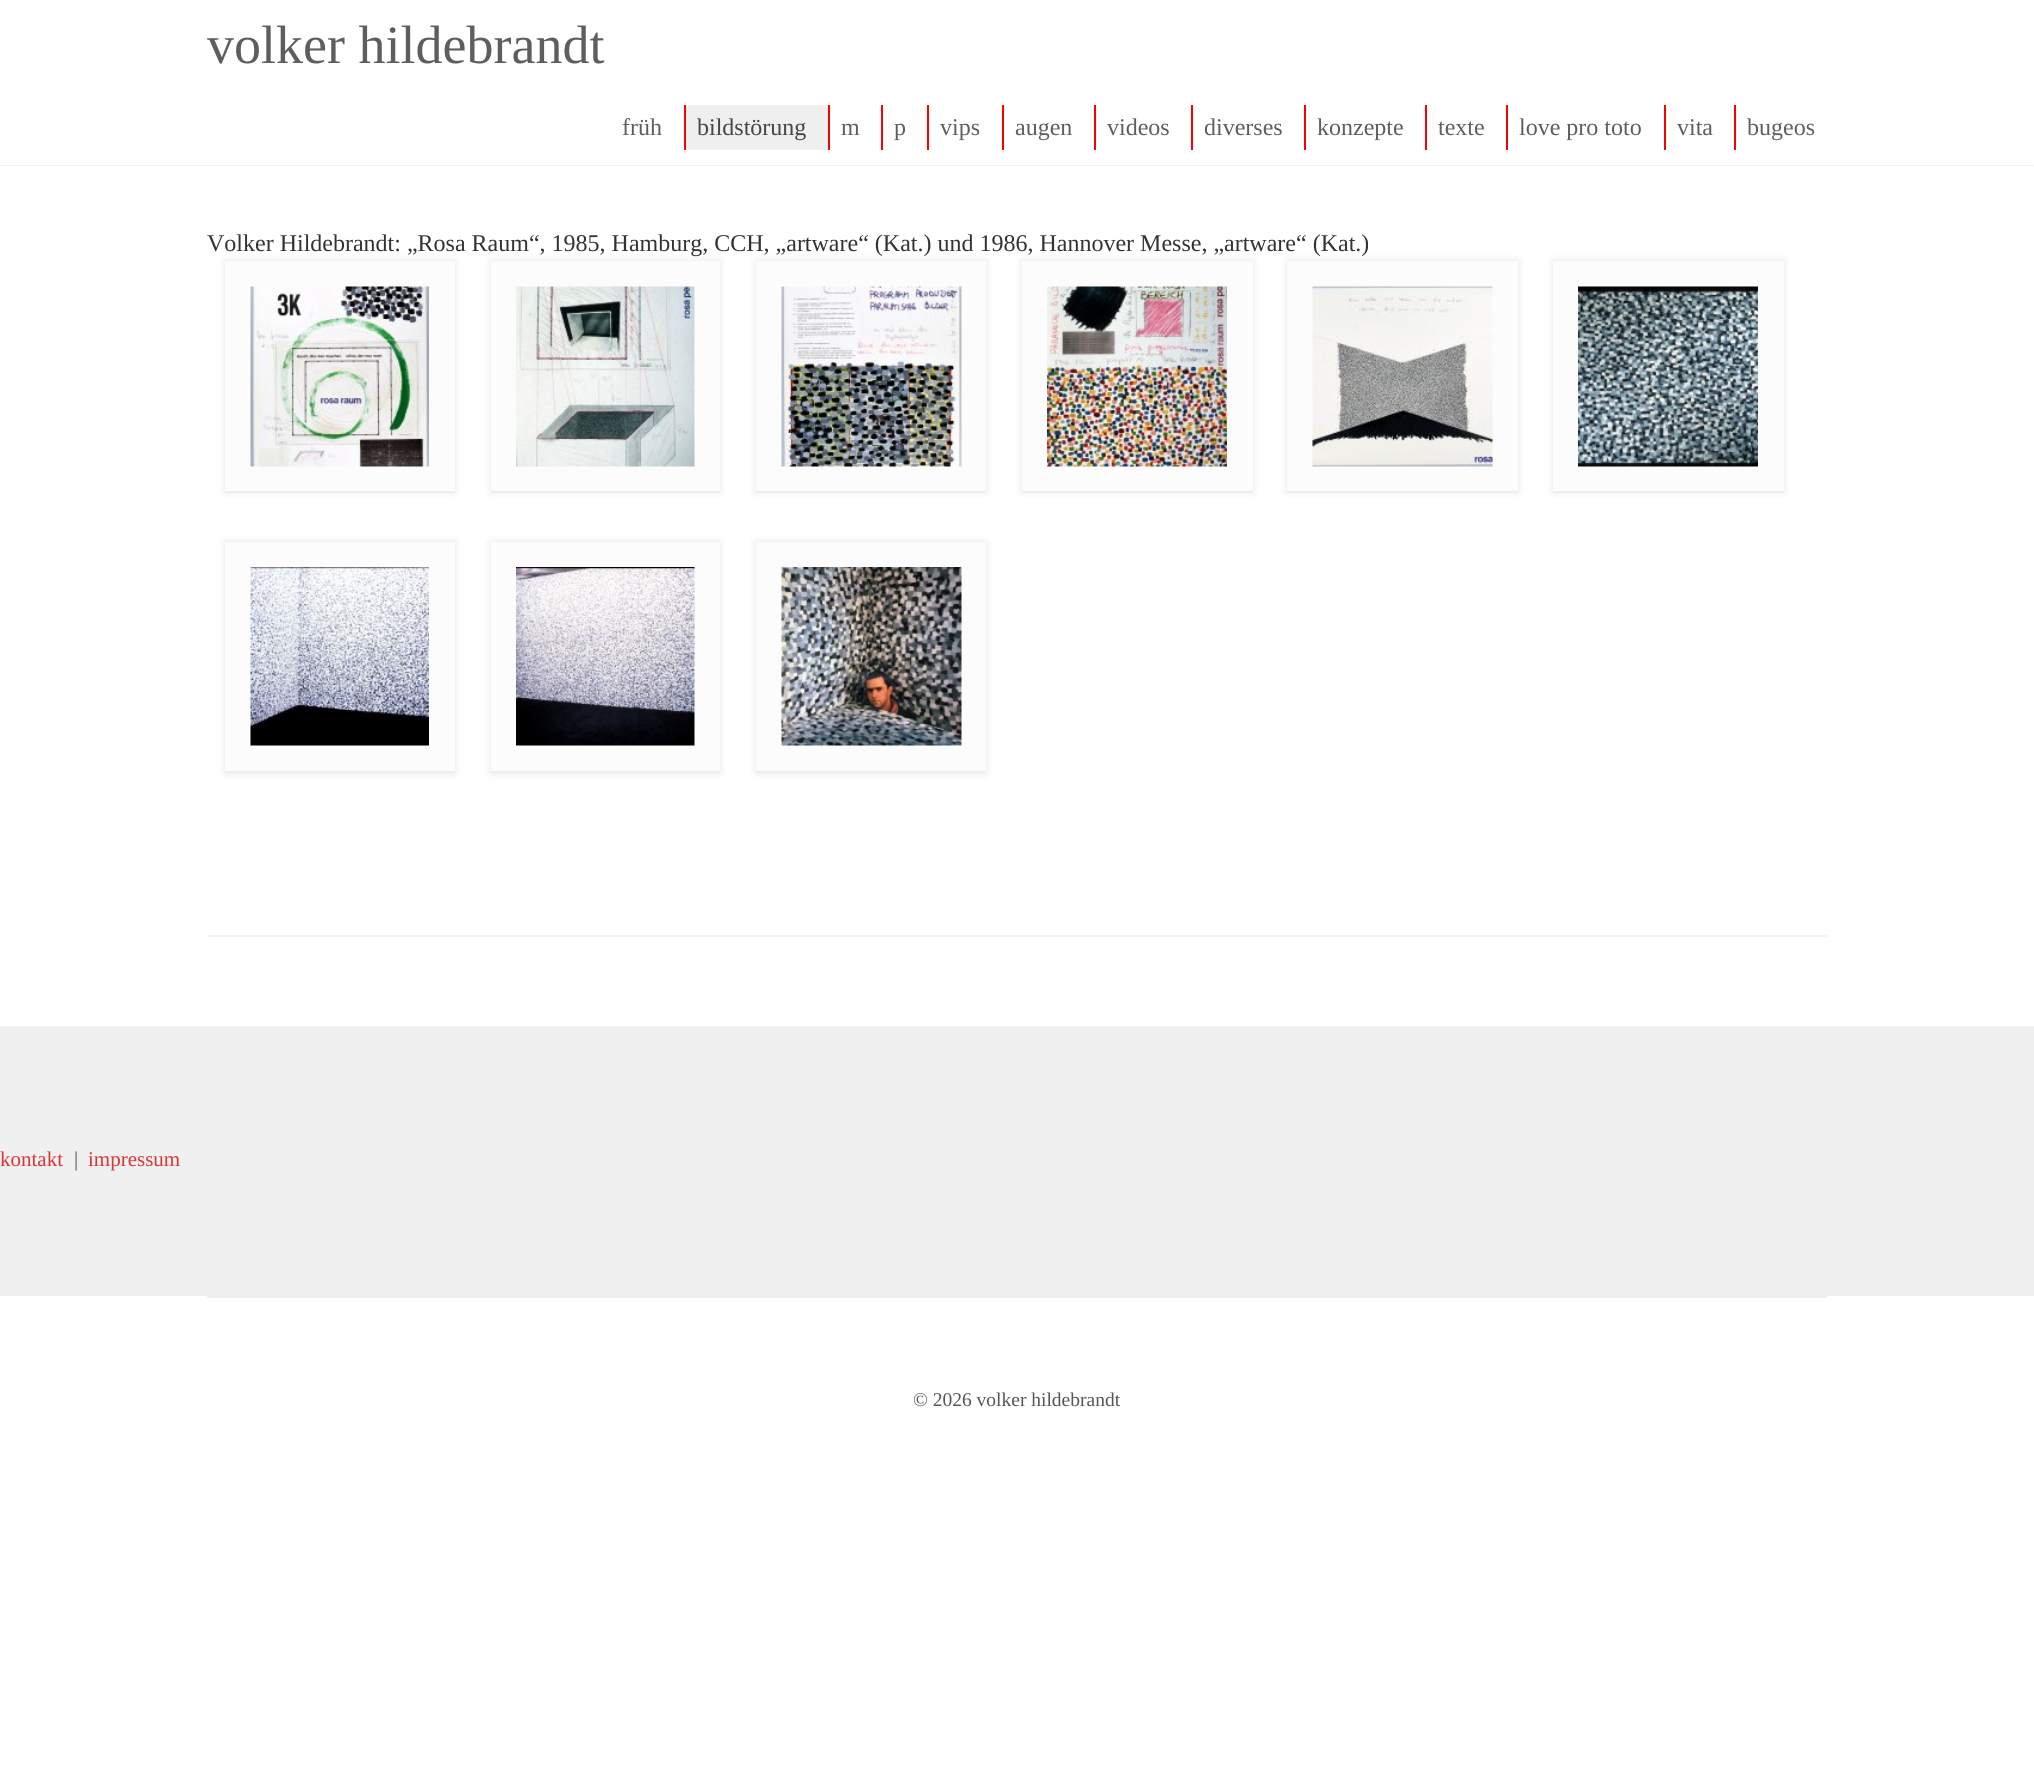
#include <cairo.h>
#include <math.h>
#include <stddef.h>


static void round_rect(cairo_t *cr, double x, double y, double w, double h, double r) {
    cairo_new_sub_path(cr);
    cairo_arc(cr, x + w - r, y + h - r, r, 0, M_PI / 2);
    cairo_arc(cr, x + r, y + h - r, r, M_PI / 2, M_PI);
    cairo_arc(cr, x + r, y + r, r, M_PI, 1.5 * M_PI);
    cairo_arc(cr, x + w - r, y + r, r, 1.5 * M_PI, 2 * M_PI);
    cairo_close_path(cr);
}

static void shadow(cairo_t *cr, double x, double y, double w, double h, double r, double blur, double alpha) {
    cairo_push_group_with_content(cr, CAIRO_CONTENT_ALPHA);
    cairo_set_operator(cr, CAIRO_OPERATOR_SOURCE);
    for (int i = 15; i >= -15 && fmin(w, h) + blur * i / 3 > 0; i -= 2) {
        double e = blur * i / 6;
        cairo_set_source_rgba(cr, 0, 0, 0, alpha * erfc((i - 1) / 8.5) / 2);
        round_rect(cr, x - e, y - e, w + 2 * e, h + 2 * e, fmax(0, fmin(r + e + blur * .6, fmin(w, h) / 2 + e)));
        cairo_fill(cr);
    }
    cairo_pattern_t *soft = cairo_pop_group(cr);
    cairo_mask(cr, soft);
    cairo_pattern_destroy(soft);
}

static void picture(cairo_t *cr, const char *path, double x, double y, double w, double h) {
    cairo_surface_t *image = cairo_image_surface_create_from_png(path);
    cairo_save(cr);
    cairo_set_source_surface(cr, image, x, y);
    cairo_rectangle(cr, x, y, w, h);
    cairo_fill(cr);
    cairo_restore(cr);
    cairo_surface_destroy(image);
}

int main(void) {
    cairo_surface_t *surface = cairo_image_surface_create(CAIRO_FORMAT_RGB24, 2034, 1789);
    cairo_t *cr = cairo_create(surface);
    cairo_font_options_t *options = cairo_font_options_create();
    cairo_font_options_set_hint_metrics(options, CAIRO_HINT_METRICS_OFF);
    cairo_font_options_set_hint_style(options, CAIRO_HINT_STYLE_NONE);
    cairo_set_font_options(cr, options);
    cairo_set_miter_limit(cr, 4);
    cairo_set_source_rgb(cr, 1, 1, 1);
    cairo_paint(cr);
    cairo_save(cr);
    cairo_rectangle(cr, 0, 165, 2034, 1);
    cairo_clip(cr);
    cairo_set_source_rgb(cr, 0, 0, 0);
    shadow(cr, 0, 0, 2034, 165, 0, 1, 0.15);
    cairo_restore(cr);
    cairo_select_font_face(cr, "Liberation Serif", CAIRO_FONT_SLANT_NORMAL, CAIRO_FONT_WEIGHT_NORMAL);
    cairo_set_font_size(cr, 54);
    cairo_set_source_rgb(cr, 0.369, 0.369, 0.369);
    cairo_move_to(cr, 207, 63);
    cairo_show_text(cr, "volker hildebrandt");
    cairo_set_font_size(cr, 24);
    cairo_move_to(cr, 622, 135);
    cairo_show_text(cr, "früh");
    cairo_set_source_rgb(cr, 0.98, 0, 0);
    cairo_rectangle(cr, 684, 105, 2, 45);
    cairo_fill(cr);
    cairo_set_source_rgb(cr, 0.937, 0.937, 0.937);
    cairo_rectangle(cr, 686, 105, 142, 45);
    cairo_fill(cr);
    cairo_set_source_rgb(cr, 0.271, 0.271, 0.271);
    cairo_move_to(cr, 697, 135);
    cairo_show_text(cr, "bildstörung");
    cairo_set_source_rgb(cr, 0.98, 0, 0);
    cairo_rectangle(cr, 828, 105, 2, 45);
    cairo_fill(cr);
    cairo_set_source_rgb(cr, 0.369, 0.369, 0.369);
    cairo_move_to(cr, 841, 135);
    cairo_show_text(cr, "m");
    cairo_set_source_rgb(cr, 0.98, 0, 0);
    cairo_rectangle(cr, 881, 105, 2, 45);
    cairo_fill(cr);
    cairo_set_source_rgb(cr, 0.369, 0.369, 0.369);
    cairo_move_to(cr, 894, 135);
    cairo_show_text(cr, "p");
    cairo_set_source_rgb(cr, 0.98, 0, 0);
    cairo_rectangle(cr, 927, 105, 2, 45);
    cairo_fill(cr);
    cairo_set_source_rgb(cr, 0.369, 0.369, 0.369);
    cairo_move_to(cr, 940, 135);
    cairo_show_text(cr, "vips");
    cairo_set_source_rgb(cr, 0.98, 0, 0);
    cairo_rectangle(cr, 1002, 105, 2, 45);
    cairo_fill(cr);
    cairo_set_source_rgb(cr, 0.369, 0.369, 0.369);
    cairo_move_to(cr, 1015, 135);
    cairo_show_text(cr, "augen");
    cairo_set_source_rgb(cr, 0.98, 0, 0);
    cairo_rectangle(cr, 1094, 105, 2, 45);
    cairo_fill(cr);
    cairo_set_source_rgb(cr, 0.369, 0.369, 0.369);
    cairo_move_to(cr, 1107, 135);
    cairo_show_text(cr, "videos");
    cairo_set_source_rgb(cr, 0.98, 0, 0);
    cairo_rectangle(cr, 1191, 105, 2, 45);
    cairo_fill(cr);
    cairo_set_source_rgb(cr, 0.369, 0.369, 0.369);
    cairo_move_to(cr, 1204, 135);
    cairo_show_text(cr, "diverses");
    cairo_set_source_rgb(cr, 0.98, 0, 0);
    cairo_rectangle(cr, 1304, 105, 2, 45);
    cairo_fill(cr);
    cairo_set_source_rgb(cr, 0.369, 0.369, 0.369);
    cairo_move_to(cr, 1317, 135);
    cairo_show_text(cr, "konzepte");
    cairo_set_source_rgb(cr, 0.98, 0, 0);
    cairo_rectangle(cr, 1425, 105, 2, 45);
    cairo_fill(cr);
    cairo_set_source_rgb(cr, 0.369, 0.369, 0.369);
    cairo_move_to(cr, 1438, 135);
    cairo_show_text(cr, "texte");
    cairo_set_source_rgb(cr, 0.98, 0, 0);
    cairo_rectangle(cr, 1506, 105, 2, 45);
    cairo_fill(cr);
    cairo_set_source_rgb(cr, 0.369, 0.369, 0.369);
    cairo_move_to(cr, 1519, 135);
    cairo_show_text(cr, "love pro toto");
    cairo_set_source_rgb(cr, 0.98, 0, 0);
    cairo_rectangle(cr, 1664, 105, 2, 45);
    cairo_fill(cr);
    cairo_set_source_rgb(cr, 0.369, 0.369, 0.369);
    cairo_move_to(cr, 1677, 135);
    cairo_show_text(cr, "vita");
    cairo_set_source_rgb(cr, 0.98, 0, 0);
    cairo_rectangle(cr, 1734, 105, 2, 45);
    cairo_fill(cr);
    cairo_set_source_rgb(cr, 0.369, 0.369, 0.369);
    cairo_move_to(cr, 1747, 135);
    cairo_show_text(cr, "bugeos");
    cairo_set_source_rgb(cr, 0.953, 0.953, 0.953);
    cairo_rectangle(cr, 207, 935, 1620, 2);
    cairo_fill(cr);
    cairo_set_source_rgb(cr, 0.2, 0.2, 0.2);
    cairo_move_to(cr, 207, 251);
    cairo_show_text(cr, "Volker Hildebrandt: „Rosa Raum“, 1985, Hamburg, CCH, „artware“ (Kat.) und 1986, Hannover Messe, „artware“ (Kat.)");
    cairo_set_source_rgb(cr, 0, 0, 0);
    shadow(cr, 225, 261, 230, 231, 0, 4, 0.1);
    cairo_set_source_rgb(cr, 0.988, 0.988, 0.988);
    cairo_rectangle(cr, 225, 261, 230, 230);
    cairo_fill(cr);
    cairo_set_source_rgb(cr, 0.933, 0.933, 0.933);
    cairo_rectangle(cr, 225, 491, 230, 2);
    cairo_fill(cr);
    picture(cr, "img1.png", 250, 286, 179, 181);
    cairo_set_source_rgb(cr, 0, 0, 0);
    shadow(cr, 491, 261, 229, 231, 0, 4, 0.1);
    cairo_set_source_rgb(cr, 0.988, 0.988, 0.988);
    cairo_rectangle(cr, 491, 261, 229, 230);
    cairo_fill(cr);
    cairo_set_source_rgb(cr, 0.933, 0.933, 0.933);
    cairo_rectangle(cr, 491, 491, 229, 2);
    cairo_fill(cr);
    picture(cr, "img2.png", 516, 286, 179, 181);
    cairo_set_source_rgb(cr, 0, 0, 0);
    shadow(cr, 756, 261, 230, 231, 0, 4, 0.1);
    cairo_set_source_rgb(cr, 0.988, 0.988, 0.988);
    cairo_rectangle(cr, 756, 261, 230, 230);
    cairo_fill(cr);
    cairo_set_source_rgb(cr, 0.933, 0.933, 0.933);
    cairo_rectangle(cr, 756, 491, 230, 2);
    cairo_fill(cr);
    picture(cr, "img3.png", 781, 286, 181, 181);
    cairo_set_source_rgb(cr, 0, 0, 0);
    shadow(cr, 1022, 261, 231, 231, 0, 4, 0.1);
    cairo_set_source_rgb(cr, 0.988, 0.988, 0.988);
    cairo_rectangle(cr, 1022, 261, 231, 230);
    cairo_fill(cr);
    cairo_set_source_rgb(cr, 0.933, 0.933, 0.933);
    cairo_rectangle(cr, 1022, 491, 231, 2);
    cairo_fill(cr);
    picture(cr, "img4.png", 1047, 286, 180, 181);
    cairo_set_source_rgb(cr, 0, 0, 0);
    shadow(cr, 1287, 261, 231, 231, 0, 4, 0.1);
    cairo_set_source_rgb(cr, 0.988, 0.988, 0.988);
    cairo_rectangle(cr, 1287, 261, 231, 230);
    cairo_fill(cr);
    cairo_set_source_rgb(cr, 0.933, 0.933, 0.933);
    cairo_rectangle(cr, 1287, 491, 231, 2);
    cairo_fill(cr);
    picture(cr, "img5.png", 1312, 286, 181, 181);
    cairo_set_source_rgb(cr, 0, 0, 0);
    shadow(cr, 1553, 261, 231, 231, 0, 4, 0.1);
    cairo_set_source_rgb(cr, 0.988, 0.988, 0.988);
    cairo_rectangle(cr, 1553, 261, 231, 230);
    cairo_fill(cr);
    cairo_set_source_rgb(cr, 0.933, 0.933, 0.933);
    cairo_rectangle(cr, 1553, 491, 231, 2);
    cairo_fill(cr);
    picture(cr, "img6.png", 1578, 286, 180, 181);
    cairo_set_source_rgb(cr, 0, 0, 0);
    shadow(cr, 225, 542, 230, 231, 0, 4, 0.1);
    cairo_set_source_rgb(cr, 0.988, 0.988, 0.988);
    cairo_rectangle(cr, 225, 542, 230, 229);
    cairo_fill(cr);
    cairo_set_source_rgb(cr, 0.933, 0.933, 0.933);
    cairo_rectangle(cr, 225, 771, 230, 2);
    cairo_fill(cr);
    picture(cr, "img7.png", 250, 567, 179, 179);
    cairo_set_source_rgb(cr, 0, 0, 0);
    shadow(cr, 491, 542, 229, 231, 0, 4, 0.1);
    cairo_set_source_rgb(cr, 0.988, 0.988, 0.988);
    cairo_rectangle(cr, 491, 542, 229, 229);
    cairo_fill(cr);
    cairo_set_source_rgb(cr, 0.933, 0.933, 0.933);
    cairo_rectangle(cr, 491, 771, 229, 2);
    cairo_fill(cr);
    picture(cr, "img8.png", 516, 567, 179, 179);
    cairo_set_source_rgb(cr, 0, 0, 0);
    shadow(cr, 756, 542, 230, 231, 0, 4, 0.1);
    cairo_set_source_rgb(cr, 0.988, 0.988, 0.988);
    cairo_rectangle(cr, 756, 542, 230, 229);
    cairo_fill(cr);
    cairo_set_source_rgb(cr, 0.933, 0.933, 0.933);
    cairo_rectangle(cr, 756, 771, 230, 2);
    cairo_fill(cr);
    picture(cr, "img9.png", 781, 567, 181, 179);
    cairo_set_source_rgb(cr, 0.941, 0.941, 0.941);
    cairo_rectangle(cr, 0, 1026, 2034, 270);
    cairo_fill(cr);
    cairo_set_font_size(cr, 21);
    cairo_set_source_rgb(cr, 0.867, 0.2, 0.2);
    cairo_move_to(cr, 0, 1166);
    cairo_show_text(cr, "kontakt");
    cairo_set_source_rgb(cr, 0.333, 0.333, 0.333);
    cairo_move_to(cr, 74, 1166);
    cairo_show_text(cr, "|");
    cairo_set_source_rgb(cr, 0.867, 0.2, 0.2);
    cairo_move_to(cr, 88, 1166);
    cairo_show_text(cr, "impressum");
    cairo_set_source_rgb(cr, 0.933, 0.933, 0.933);
    cairo_rectangle(cr, 207, 1296, 1620, 2);
    cairo_fill(cr);
    cairo_set_font_size(cr, 19.5);
    cairo_set_source_rgb(cr, 0.333, 0.333, 0.333);
    cairo_move_to(cr, 913, 1406);
    cairo_show_text(cr, "© 2026 volker hildebrandt");
    cairo_surface_write_to_png(surface, "page.png");
    cairo_font_options_destroy(options);
    cairo_destroy(cr);
    cairo_surface_destroy(surface);
    return 0;
}
